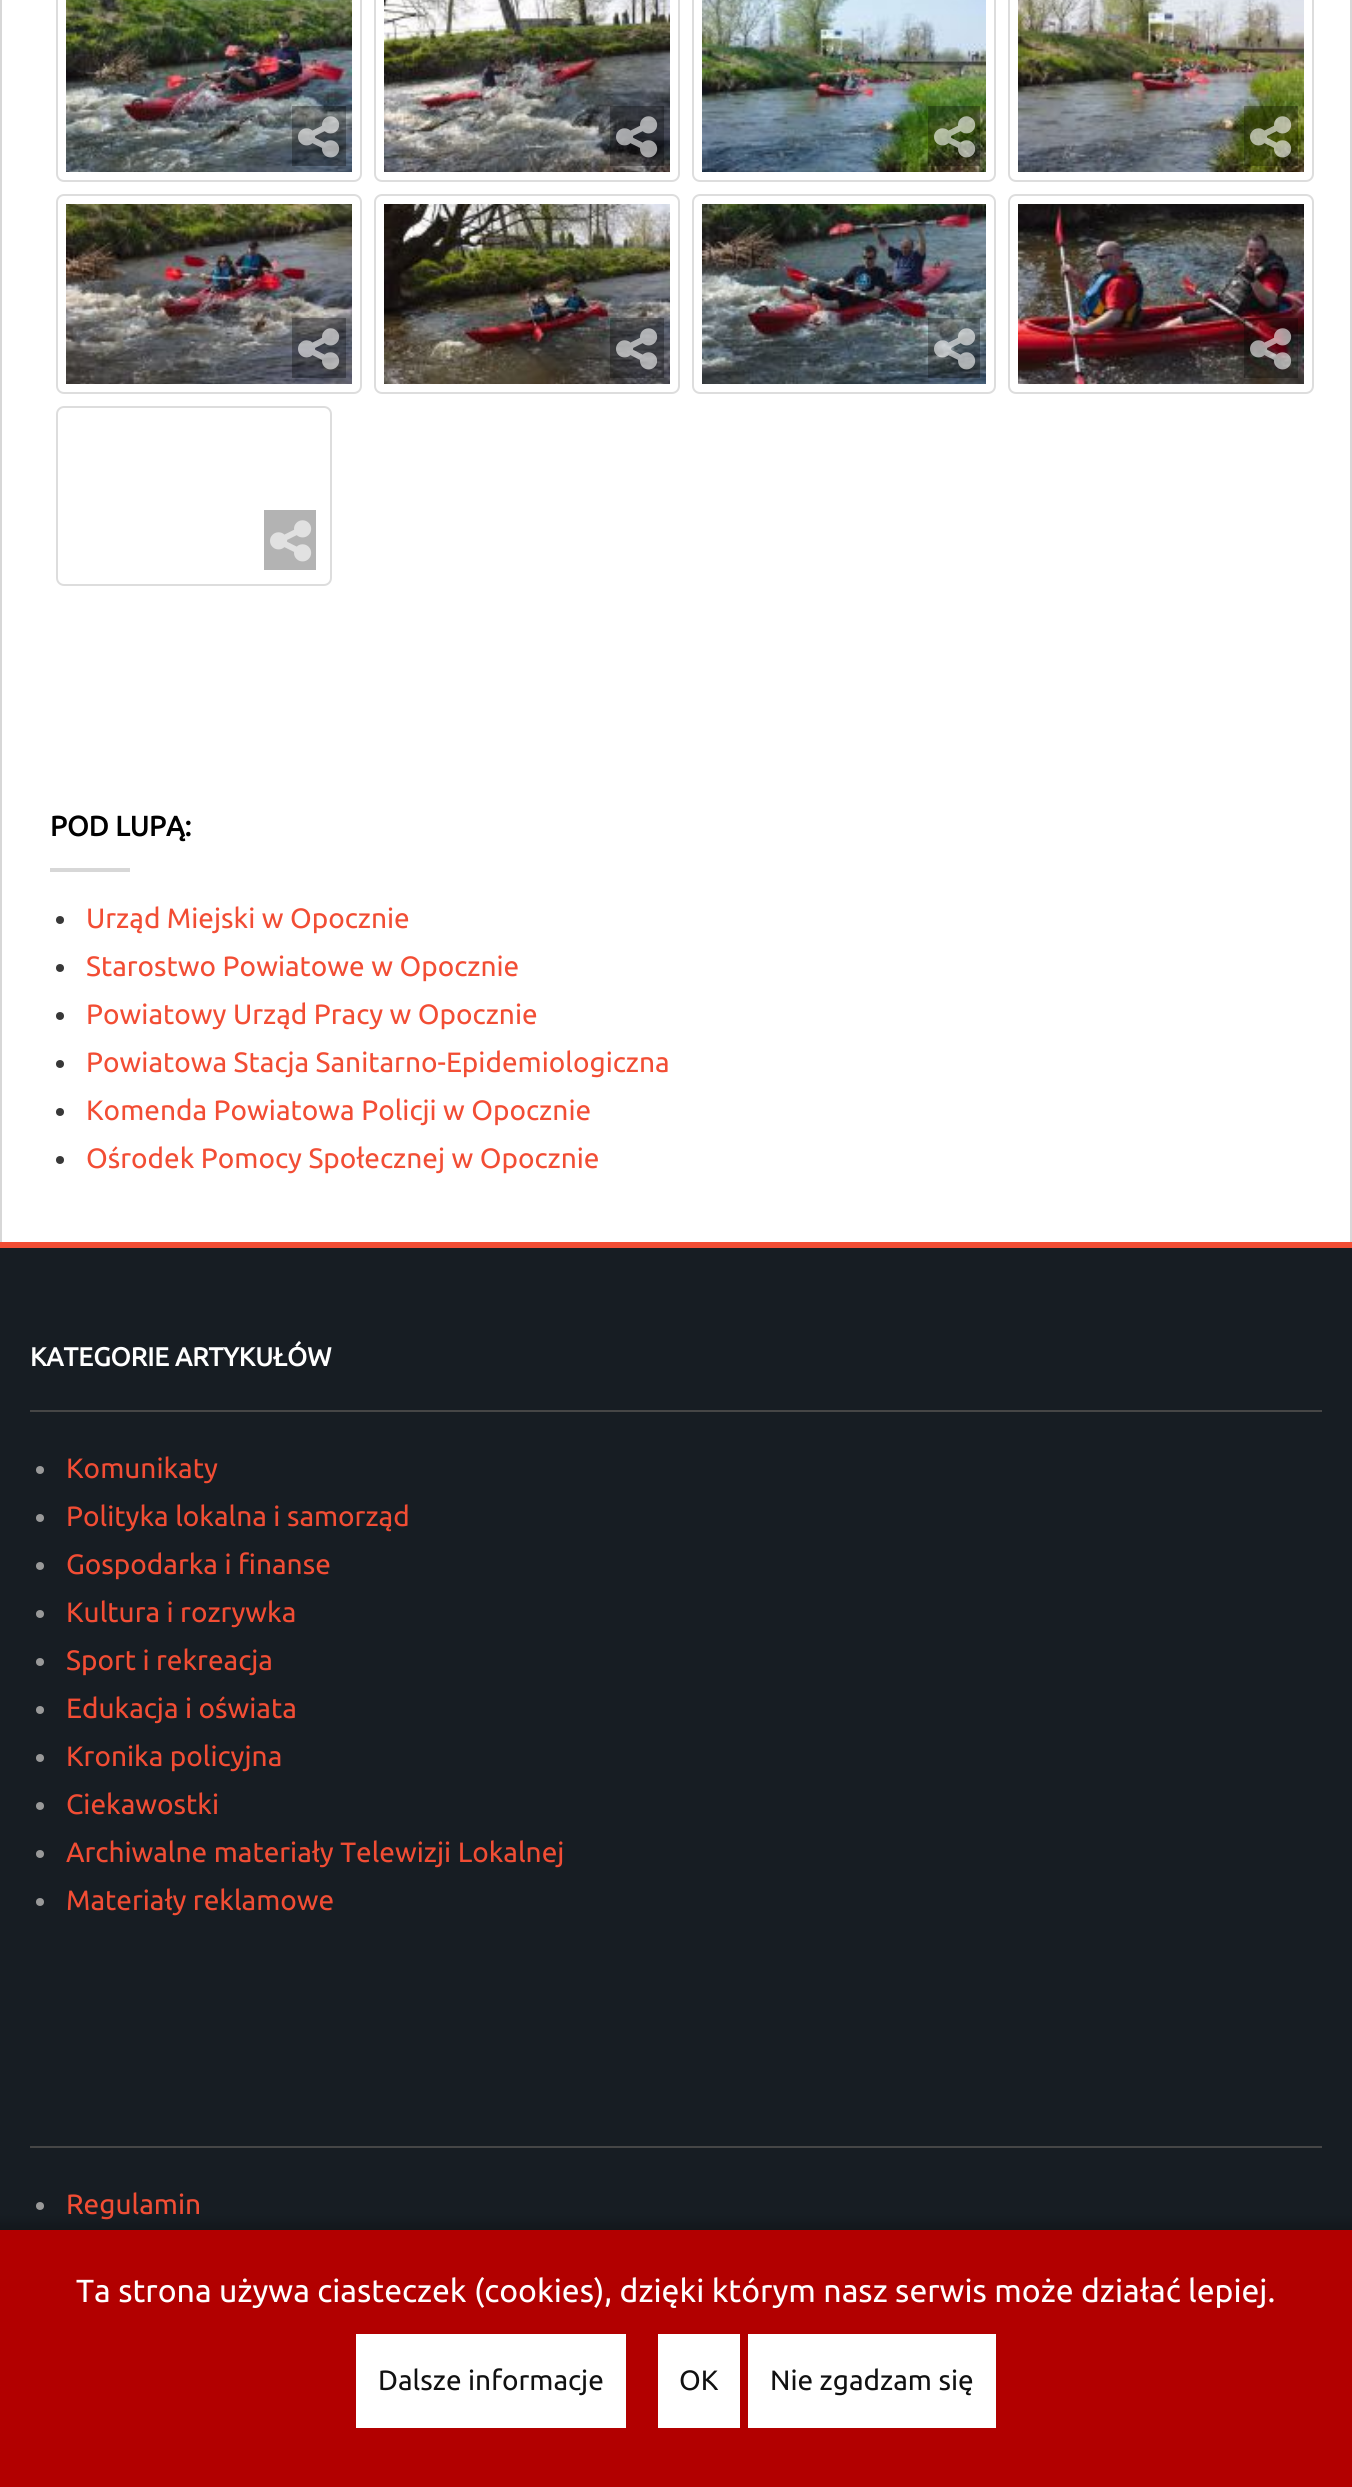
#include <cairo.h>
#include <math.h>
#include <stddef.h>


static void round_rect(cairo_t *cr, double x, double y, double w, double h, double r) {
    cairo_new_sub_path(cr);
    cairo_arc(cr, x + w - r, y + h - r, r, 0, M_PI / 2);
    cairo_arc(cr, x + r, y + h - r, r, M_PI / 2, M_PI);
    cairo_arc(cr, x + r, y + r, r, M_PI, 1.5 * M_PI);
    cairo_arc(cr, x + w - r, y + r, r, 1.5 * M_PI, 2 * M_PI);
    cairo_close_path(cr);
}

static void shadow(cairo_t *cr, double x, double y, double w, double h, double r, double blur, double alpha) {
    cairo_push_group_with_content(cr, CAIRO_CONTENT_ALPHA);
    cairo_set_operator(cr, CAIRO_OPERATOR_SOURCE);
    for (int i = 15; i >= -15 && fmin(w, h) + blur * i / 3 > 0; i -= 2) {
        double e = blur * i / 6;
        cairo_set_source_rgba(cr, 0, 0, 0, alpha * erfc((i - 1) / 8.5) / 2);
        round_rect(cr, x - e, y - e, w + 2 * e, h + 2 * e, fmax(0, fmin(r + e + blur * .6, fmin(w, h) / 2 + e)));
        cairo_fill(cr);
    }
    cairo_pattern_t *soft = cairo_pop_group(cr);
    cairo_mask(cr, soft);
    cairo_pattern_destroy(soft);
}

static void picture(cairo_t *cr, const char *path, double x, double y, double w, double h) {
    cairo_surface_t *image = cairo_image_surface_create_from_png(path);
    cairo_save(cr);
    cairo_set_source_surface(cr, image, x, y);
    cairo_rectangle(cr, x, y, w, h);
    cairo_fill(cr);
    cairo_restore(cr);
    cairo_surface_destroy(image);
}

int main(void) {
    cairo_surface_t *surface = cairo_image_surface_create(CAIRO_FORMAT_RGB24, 1352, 2487);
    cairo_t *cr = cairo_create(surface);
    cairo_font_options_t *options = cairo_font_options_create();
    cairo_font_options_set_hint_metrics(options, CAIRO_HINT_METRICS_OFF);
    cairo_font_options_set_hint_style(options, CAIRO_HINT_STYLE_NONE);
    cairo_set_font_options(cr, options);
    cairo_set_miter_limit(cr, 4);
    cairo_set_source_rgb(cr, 1, 1, 1);
    cairo_paint(cr);
    cairo_set_source_rgb(cr, 0.843, 0.843, 0.843);
    cairo_rectangle(cr, 0, 0, 2, 1242);
    cairo_fill(cr);
    round_rect(cr, 57, -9, 304, 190, 7);
    cairo_set_source_rgb(cr, 0.867, 0.867, 0.867);
    cairo_stroke(cr);
    picture(cr, "img1.png", 66, 0, 286, 172);
    cairo_set_source_rgba(cr, 0, 0, 0, 0.3);
    cairo_rectangle(cr, 292, 106, 54, 60);
    cairo_fill(cr);
    picture(cr, "img2.png", 298, 116, 42, 42);
    round_rect(cr, 375, -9, 304, 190, 7);
    cairo_set_source_rgb(cr, 0.867, 0.867, 0.867);
    cairo_stroke(cr);
    picture(cr, "img3.png", 384, 0, 286, 172);
    cairo_set_source_rgba(cr, 0, 0, 0, 0.3);
    cairo_rectangle(cr, 610, 106, 54, 60);
    cairo_fill(cr);
    picture(cr, "img4.png", 616, 116, 42, 42);
    round_rect(cr, 693, -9, 302, 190, 7);
    cairo_set_source_rgb(cr, 0.867, 0.867, 0.867);
    cairo_stroke(cr);
    picture(cr, "img5.png", 702, 0, 284, 172);
    cairo_set_source_rgba(cr, 0, 0, 0, 0.3);
    cairo_rectangle(cr, 928, 106, 52, 60);
    cairo_fill(cr);
    picture(cr, "img6.png", 934, 116, 42, 42);
    round_rect(cr, 1009, -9, 304, 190, 7);
    cairo_set_source_rgb(cr, 0.867, 0.867, 0.867);
    cairo_stroke(cr);
    picture(cr, "img7.png", 1018, 0, 286, 172);
    cairo_set_source_rgba(cr, 0, 0, 0, 0.3);
    cairo_rectangle(cr, 1244, 106, 54, 60);
    cairo_fill(cr);
    picture(cr, "img8.png", 1250, 116, 42, 42);
    round_rect(cr, 57, 195, 304, 198, 7);
    cairo_set_source_rgb(cr, 0.867, 0.867, 0.867);
    cairo_stroke(cr);
    picture(cr, "img9.png", 66, 204, 286, 180);
    cairo_set_source_rgba(cr, 0, 0, 0, 0.3);
    cairo_rectangle(cr, 292, 318, 54, 60);
    cairo_fill(cr);
    picture(cr, "img10.png", 298, 328, 42, 42);
    round_rect(cr, 375, 195, 304, 198, 7);
    cairo_set_source_rgb(cr, 0.867, 0.867, 0.867);
    cairo_stroke(cr);
    picture(cr, "img11.png", 384, 204, 286, 180);
    cairo_set_source_rgba(cr, 0, 0, 0, 0.3);
    cairo_rectangle(cr, 610, 318, 54, 60);
    cairo_fill(cr);
    picture(cr, "img12.png", 616, 328, 42, 42);
    round_rect(cr, 693, 195, 302, 198, 7);
    cairo_set_source_rgb(cr, 0.867, 0.867, 0.867);
    cairo_stroke(cr);
    picture(cr, "img13.png", 702, 204, 284, 180);
    cairo_set_source_rgba(cr, 0, 0, 0, 0.3);
    cairo_rectangle(cr, 928, 318, 52, 60);
    cairo_fill(cr);
    picture(cr, "img14.png", 934, 328, 42, 42);
    round_rect(cr, 1009, 195, 304, 198, 7);
    cairo_set_source_rgb(cr, 0.867, 0.867, 0.867);
    cairo_stroke(cr);
    picture(cr, "img15.png", 1018, 204, 286, 180);
    cairo_set_source_rgba(cr, 0, 0, 0, 0.3);
    cairo_rectangle(cr, 1244, 318, 54, 60);
    cairo_fill(cr);
    picture(cr, "img16.png", 1250, 328, 42, 42);
    round_rect(cr, 57, 407, 274, 178, 7);
    cairo_set_source_rgb(cr, 0.867, 0.867, 0.867);
    cairo_stroke(cr);
    cairo_set_source_rgb(cr, 0.702, 0.702, 0.702);
    cairo_rectangle(cr, 264, 510, 52, 60);
    cairo_fill(cr);
    picture(cr, "img17.png", 270, 520, 42, 42);
    cairo_set_source_rgb(cr, 0.843, 0.843, 0.843);
    cairo_rectangle(cr, 1350, 0, 2, 1242);
    cairo_fill(cr);
    cairo_select_font_face(cr, "Ubuntu", CAIRO_FONT_SLANT_NORMAL, CAIRO_FONT_WEIGHT_BOLD);
    cairo_set_font_size(cr, 28);
    cairo_set_source_rgb(cr, 0, 0, 0);
    cairo_move_to(cr, 50, 836);
    cairo_show_text(cr, "POD LUPĄ:");
    cairo_set_source_rgb(cr, 0.843, 0.843, 0.843);
    cairo_rectangle(cr, 50, 868, 80, 4);
    cairo_fill(cr);
    cairo_set_source_rgb(cr, 0.22, 0.22, 0.22);
    cairo_arc(cr, 60, 920, 4, 0, 2 * M_PI);
    cairo_fill(cr);
    cairo_select_font_face(cr, "Ubuntu", CAIRO_FONT_SLANT_NORMAL, CAIRO_FONT_WEIGHT_NORMAL);
    cairo_set_source_rgb(cr, 0.949, 0.302, 0.204);
    cairo_move_to(cr, 86, 928);
    cairo_show_text(cr, "Urząd Miejski w Opocznie");
    cairo_set_source_rgb(cr, 0.22, 0.22, 0.22);
    cairo_new_path(cr);
    cairo_arc(cr, 60, 968, 4, 0, 2 * M_PI);
    cairo_fill(cr);
    cairo_set_source_rgb(cr, 0.949, 0.302, 0.204);
    cairo_move_to(cr, 86, 976);
    cairo_show_text(cr, "Starostwo Powiatowe w Opocznie");
    cairo_set_source_rgb(cr, 0.22, 0.22, 0.22);
    cairo_new_path(cr);
    cairo_arc(cr, 60, 1016, 4, 0, 2 * M_PI);
    cairo_fill(cr);
    cairo_set_source_rgb(cr, 0.949, 0.302, 0.204);
    cairo_move_to(cr, 86, 1024);
    cairo_show_text(cr, "Powiatowy Urząd Pracy w Opocznie");
    cairo_set_source_rgb(cr, 0.22, 0.22, 0.22);
    cairo_new_path(cr);
    cairo_arc(cr, 60, 1064, 4, 0, 2 * M_PI);
    cairo_fill(cr);
    cairo_set_source_rgb(cr, 0.949, 0.302, 0.204);
    cairo_move_to(cr, 86, 1072);
    cairo_show_text(cr, "Powiatowa Stacja Sanitarno-Epidemiologiczna");
    cairo_set_source_rgb(cr, 0.22, 0.22, 0.22);
    cairo_new_path(cr);
    cairo_arc(cr, 60, 1112, 4, 0, 2 * M_PI);
    cairo_fill(cr);
    cairo_set_source_rgb(cr, 0.949, 0.302, 0.204);
    cairo_move_to(cr, 86, 1120);
    cairo_show_text(cr, "Komenda Powiatowa Policji w Opocznie");
    cairo_set_source_rgb(cr, 0.22, 0.22, 0.22);
    cairo_new_path(cr);
    cairo_arc(cr, 60, 1160, 4, 0, 2 * M_PI);
    cairo_fill(cr);
    cairo_set_source_rgb(cr, 0.949, 0.302, 0.204);
    cairo_move_to(cr, 86, 1168);
    cairo_show_text(cr, "Ośrodek Pomocy Społecznej w Opocznie");
    cairo_set_source_rgb(cr, 0.09, 0.114, 0.137);
    cairo_rectangle(cr, 0, 1248, 1352, 982);
    cairo_fill(cr);
    cairo_set_source_rgb(cr, 0.949, 0.302, 0.204);
    cairo_rectangle(cr, 0, 1242, 1352, 6);
    cairo_fill(cr);
    cairo_set_source_rgb(cr, 0.275, 0.275, 0.275);
    cairo_rectangle(cr, 30, 1410, 1292, 2);
    cairo_fill(cr);
    cairo_select_font_face(cr, "Ubuntu", CAIRO_FONT_SLANT_NORMAL, CAIRO_FONT_WEIGHT_BOLD);
    cairo_set_font_size(cr, 26);
    cairo_set_source_rgb(cr, 1, 1, 1);
    cairo_move_to(cr, 30, 1366);
    cairo_show_text(cr, "KATEGORIE ARTYKUŁÓW");
    cairo_set_source_rgb(cr, 0.6, 0.6, 0.6);
    cairo_new_path(cr);
    cairo_arc(cr, 40, 1470, 4, 0, 2 * M_PI);
    cairo_fill(cr);
    cairo_select_font_face(cr, "Ubuntu", CAIRO_FONT_SLANT_NORMAL, CAIRO_FONT_WEIGHT_NORMAL);
    cairo_set_font_size(cr, 28);
    cairo_set_source_rgb(cr, 0.949, 0.302, 0.204);
    cairo_move_to(cr, 66, 1478);
    cairo_show_text(cr, "Komunikaty");
    cairo_set_source_rgb(cr, 0.6, 0.6, 0.6);
    cairo_new_path(cr);
    cairo_arc(cr, 40, 1518, 4, 0, 2 * M_PI);
    cairo_fill(cr);
    cairo_set_source_rgb(cr, 0.949, 0.302, 0.204);
    cairo_move_to(cr, 66, 1526);
    cairo_show_text(cr, "Polityka lokalna i samorząd");
    cairo_set_source_rgb(cr, 0.6, 0.6, 0.6);
    cairo_new_path(cr);
    cairo_arc(cr, 40, 1566, 4, 0, 2 * M_PI);
    cairo_fill(cr);
    cairo_set_source_rgb(cr, 0.949, 0.302, 0.204);
    cairo_move_to(cr, 66, 1574);
    cairo_show_text(cr, "Gospodarka i finanse");
    cairo_set_source_rgb(cr, 0.6, 0.6, 0.6);
    cairo_new_path(cr);
    cairo_arc(cr, 40, 1614, 4, 0, 2 * M_PI);
    cairo_fill(cr);
    cairo_set_source_rgb(cr, 0.949, 0.302, 0.204);
    cairo_move_to(cr, 66, 1622);
    cairo_show_text(cr, "Kultura i rozrywka");
    cairo_set_source_rgb(cr, 0.6, 0.6, 0.6);
    cairo_new_path(cr);
    cairo_arc(cr, 40, 1662, 4, 0, 2 * M_PI);
    cairo_fill(cr);
    cairo_set_source_rgb(cr, 0.949, 0.302, 0.204);
    cairo_move_to(cr, 66, 1670);
    cairo_show_text(cr, "Sport i rekreacja");
    cairo_set_source_rgb(cr, 0.6, 0.6, 0.6);
    cairo_new_path(cr);
    cairo_arc(cr, 40, 1710, 4, 0, 2 * M_PI);
    cairo_fill(cr);
    cairo_set_source_rgb(cr, 0.949, 0.302, 0.204);
    cairo_move_to(cr, 66, 1718);
    cairo_show_text(cr, "Edukacja i oświata");
    cairo_set_source_rgb(cr, 0.6, 0.6, 0.6);
    cairo_new_path(cr);
    cairo_arc(cr, 40, 1758, 4, 0, 2 * M_PI);
    cairo_fill(cr);
    cairo_set_source_rgb(cr, 0.949, 0.302, 0.204);
    cairo_move_to(cr, 66, 1766);
    cairo_show_text(cr, "Kronika policyjna");
    cairo_set_source_rgb(cr, 0.6, 0.6, 0.6);
    cairo_new_path(cr);
    cairo_arc(cr, 40, 1806, 4, 0, 2 * M_PI);
    cairo_fill(cr);
    cairo_set_source_rgb(cr, 0.949, 0.302, 0.204);
    cairo_move_to(cr, 66, 1814);
    cairo_show_text(cr, "Ciekawostki");
    cairo_set_source_rgb(cr, 0.6, 0.6, 0.6);
    cairo_new_path(cr);
    cairo_arc(cr, 40, 1854, 4, 0, 2 * M_PI);
    cairo_fill(cr);
    cairo_set_source_rgb(cr, 0.949, 0.302, 0.204);
    cairo_move_to(cr, 66, 1862);
    cairo_show_text(cr, "Archiwalne materiały Telewizji Lokalnej");
    cairo_set_source_rgb(cr, 0.6, 0.6, 0.6);
    cairo_new_path(cr);
    cairo_arc(cr, 40, 1902, 4, 0, 2 * M_PI);
    cairo_fill(cr);
    cairo_set_source_rgb(cr, 0.949, 0.302, 0.204);
    cairo_move_to(cr, 66, 1910);
    cairo_show_text(cr, "Materiały reklamowe");
    cairo_set_source_rgb(cr, 0.275, 0.275, 0.275);
    cairo_rectangle(cr, 30, 2146, 1292, 2);
    cairo_fill(cr);
    cairo_set_source_rgb(cr, 0.6, 0.6, 0.6);
    cairo_arc(cr, 40, 2206, 4, 0, 2 * M_PI);
    cairo_fill(cr);
    cairo_set_source_rgb(cr, 0.949, 0.302, 0.204);
    cairo_move_to(cr, 66, 2214);
    cairo_show_text(cr, "Regulamin");
    cairo_set_source_rgb(cr, 0, 0, 0);
    shadow(cr, -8, 2222, 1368, 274, 0, 5, 0.21);
    cairo_set_source_rgb(cr, 0.698, 0, 0);
    cairo_rectangle(cr, 0, 2230, 1352, 257);
    cairo_fill(cr);
    cairo_set_font_size(cr, 32);
    cairo_set_source_rgb(cr, 1, 1, 1);
    cairo_move_to(cr, 76, 2302);
    cairo_show_text(cr, "Ta strona używa ciasteczek (cookies), dzięki którym nasz serwis może działać lepiej.");
    cairo_rectangle(cr, 356, 2334, 270, 94);
    cairo_fill(cr);
    cairo_set_font_size(cr, 28);
    cairo_set_source_rgb(cr, 0.067, 0.067, 0.067);
    cairo_move_to(cr, 378, 2390);
    cairo_show_text(cr, "Dalsze informacje");
    cairo_set_source_rgb(cr, 1, 1, 1);
    cairo_rectangle(cr, 658, 2334, 82, 94);
    cairo_fill(cr);
    cairo_set_source_rgb(cr, 0.067, 0.067, 0.067);
    cairo_move_to(cr, 679, 2390);
    cairo_show_text(cr, "OK");
    cairo_set_source_rgb(cr, 1, 1, 1);
    cairo_rectangle(cr, 748, 2334, 248, 94);
    cairo_fill(cr);
    cairo_set_source_rgb(cr, 0.067, 0.067, 0.067);
    cairo_move_to(cr, 770, 2390);
    cairo_show_text(cr, "Nie zgadzam się");
    cairo_surface_write_to_png(surface, "page.png");
    cairo_font_options_destroy(options);
    cairo_destroy(cr);
    cairo_surface_destroy(surface);
    return 0;
}
